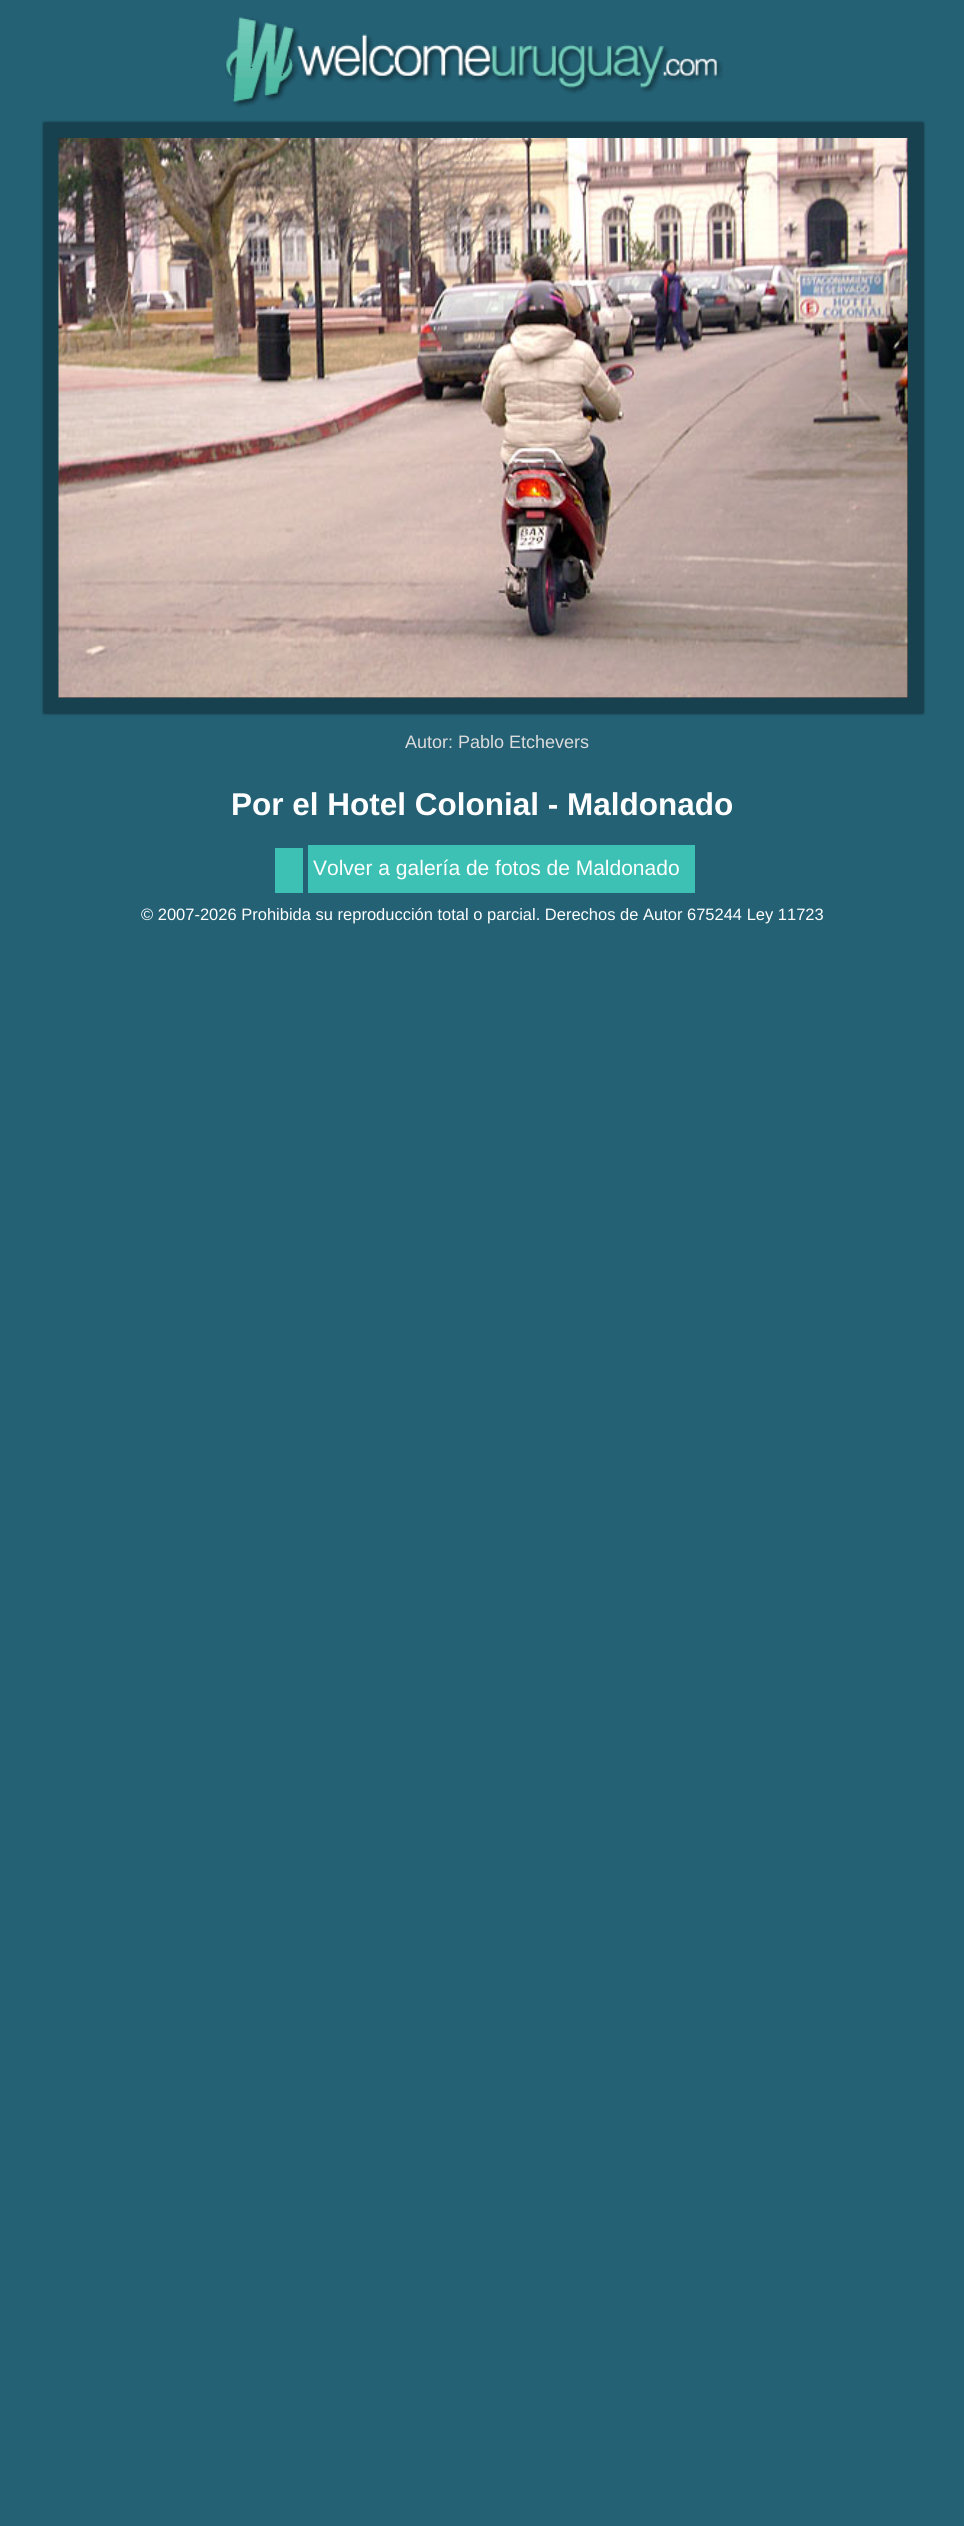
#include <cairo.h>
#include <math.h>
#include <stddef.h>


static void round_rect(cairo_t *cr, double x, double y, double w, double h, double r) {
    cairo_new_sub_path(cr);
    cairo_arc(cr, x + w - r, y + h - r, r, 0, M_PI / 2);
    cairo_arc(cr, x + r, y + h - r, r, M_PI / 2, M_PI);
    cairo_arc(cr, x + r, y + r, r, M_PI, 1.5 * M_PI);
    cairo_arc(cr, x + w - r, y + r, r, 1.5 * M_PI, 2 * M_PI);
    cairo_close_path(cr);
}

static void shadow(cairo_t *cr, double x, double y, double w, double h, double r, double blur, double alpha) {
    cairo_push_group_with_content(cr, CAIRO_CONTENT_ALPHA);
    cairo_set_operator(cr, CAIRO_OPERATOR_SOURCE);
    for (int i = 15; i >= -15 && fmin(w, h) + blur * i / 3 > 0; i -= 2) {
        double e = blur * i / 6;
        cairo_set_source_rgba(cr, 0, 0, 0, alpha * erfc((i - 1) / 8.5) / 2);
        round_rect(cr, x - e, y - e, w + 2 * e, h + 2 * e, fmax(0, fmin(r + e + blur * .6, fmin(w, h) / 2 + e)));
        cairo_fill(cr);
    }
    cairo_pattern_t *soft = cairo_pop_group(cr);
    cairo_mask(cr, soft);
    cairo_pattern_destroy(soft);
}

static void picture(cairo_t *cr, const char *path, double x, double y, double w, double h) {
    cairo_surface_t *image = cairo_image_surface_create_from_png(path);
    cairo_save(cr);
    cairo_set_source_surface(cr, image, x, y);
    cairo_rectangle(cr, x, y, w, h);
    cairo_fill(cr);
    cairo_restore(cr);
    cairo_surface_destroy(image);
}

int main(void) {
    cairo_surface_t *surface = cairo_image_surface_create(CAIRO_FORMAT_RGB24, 964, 2526);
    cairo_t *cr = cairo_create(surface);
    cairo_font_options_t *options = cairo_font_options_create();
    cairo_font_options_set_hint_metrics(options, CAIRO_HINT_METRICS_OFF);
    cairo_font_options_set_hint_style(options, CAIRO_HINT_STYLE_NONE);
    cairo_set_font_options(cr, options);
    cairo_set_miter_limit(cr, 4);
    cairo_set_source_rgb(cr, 0.141, 0.38, 0.459);
    cairo_paint(cr);
    picture(cr, "img1.png", 225, 16, 498, 92);
    cairo_set_source_rgb(cr, 0, 0, 0);
    shadow(cr, 44, 123, 879, 590, 0, 1.5, 0.8);
    cairo_rectangle(cr, 51.5, 130.5, 864, 575);
    cairo_set_source_rgb(cr, 0.094, 0.255, 0.31);
    cairo_set_line_width(cr, 15);
    cairo_stroke(cr);
    picture(cr, "img2.png", 58, 138, 850, 560);
    cairo_select_font_face(cr, "Liberation Sans", CAIRO_FONT_SLANT_NORMAL, CAIRO_FONT_WEIGHT_NORMAL);
    cairo_set_font_size(cr, 18);
    cairo_set_source_rgb(cr, 0.863, 0.863, 0.863);
    cairo_move_to(cr, 405, 748);
    cairo_show_text(cr, "Autor: Pablo Etchevers");
    cairo_select_font_face(cr, "Liberation Sans", CAIRO_FONT_SLANT_NORMAL, CAIRO_FONT_WEIGHT_BOLD);
    cairo_set_font_size(cr, 31.5);
    cairo_set_source_rgb(cr, 1, 1, 1);
    cairo_move_to(cr, 231, 815);
    cairo_show_text(cr, "Por el Hotel Colonial - Maldonado");
    cairo_set_source_rgb(cr, 0.235, 0.757, 0.706);
    cairo_rectangle(cr, 308, 845, 387, 48);
    cairo_fill(cr);
    cairo_select_font_face(cr, "Liberation Sans", CAIRO_FONT_SLANT_NORMAL, CAIRO_FONT_WEIGHT_NORMAL);
    cairo_set_font_size(cr, 21);
    cairo_set_source_rgb(cr, 1, 1, 1);
    cairo_move_to(cr, 313, 875);
    cairo_show_text(cr, "Volver a galería de fotos de Maldonado");
    cairo_set_source_rgb(cr, 0.235, 0.757, 0.706);
    cairo_rectangle(cr, 275, 848, 28, 45);
    cairo_fill(cr);
    cairo_set_font_size(cr, 16.5);
    cairo_set_source_rgb(cr, 1, 1, 1);
    cairo_move_to(cr, 141, 920);
    cairo_show_text(cr, "© 2007-2026 Prohibida su reproducción total o parcial. Derechos de Autor 675244 Ley 11723");
    cairo_surface_write_to_png(surface, "page.png");
    cairo_font_options_destroy(options);
    cairo_destroy(cr);
    cairo_surface_destroy(surface);
    return 0;
}
